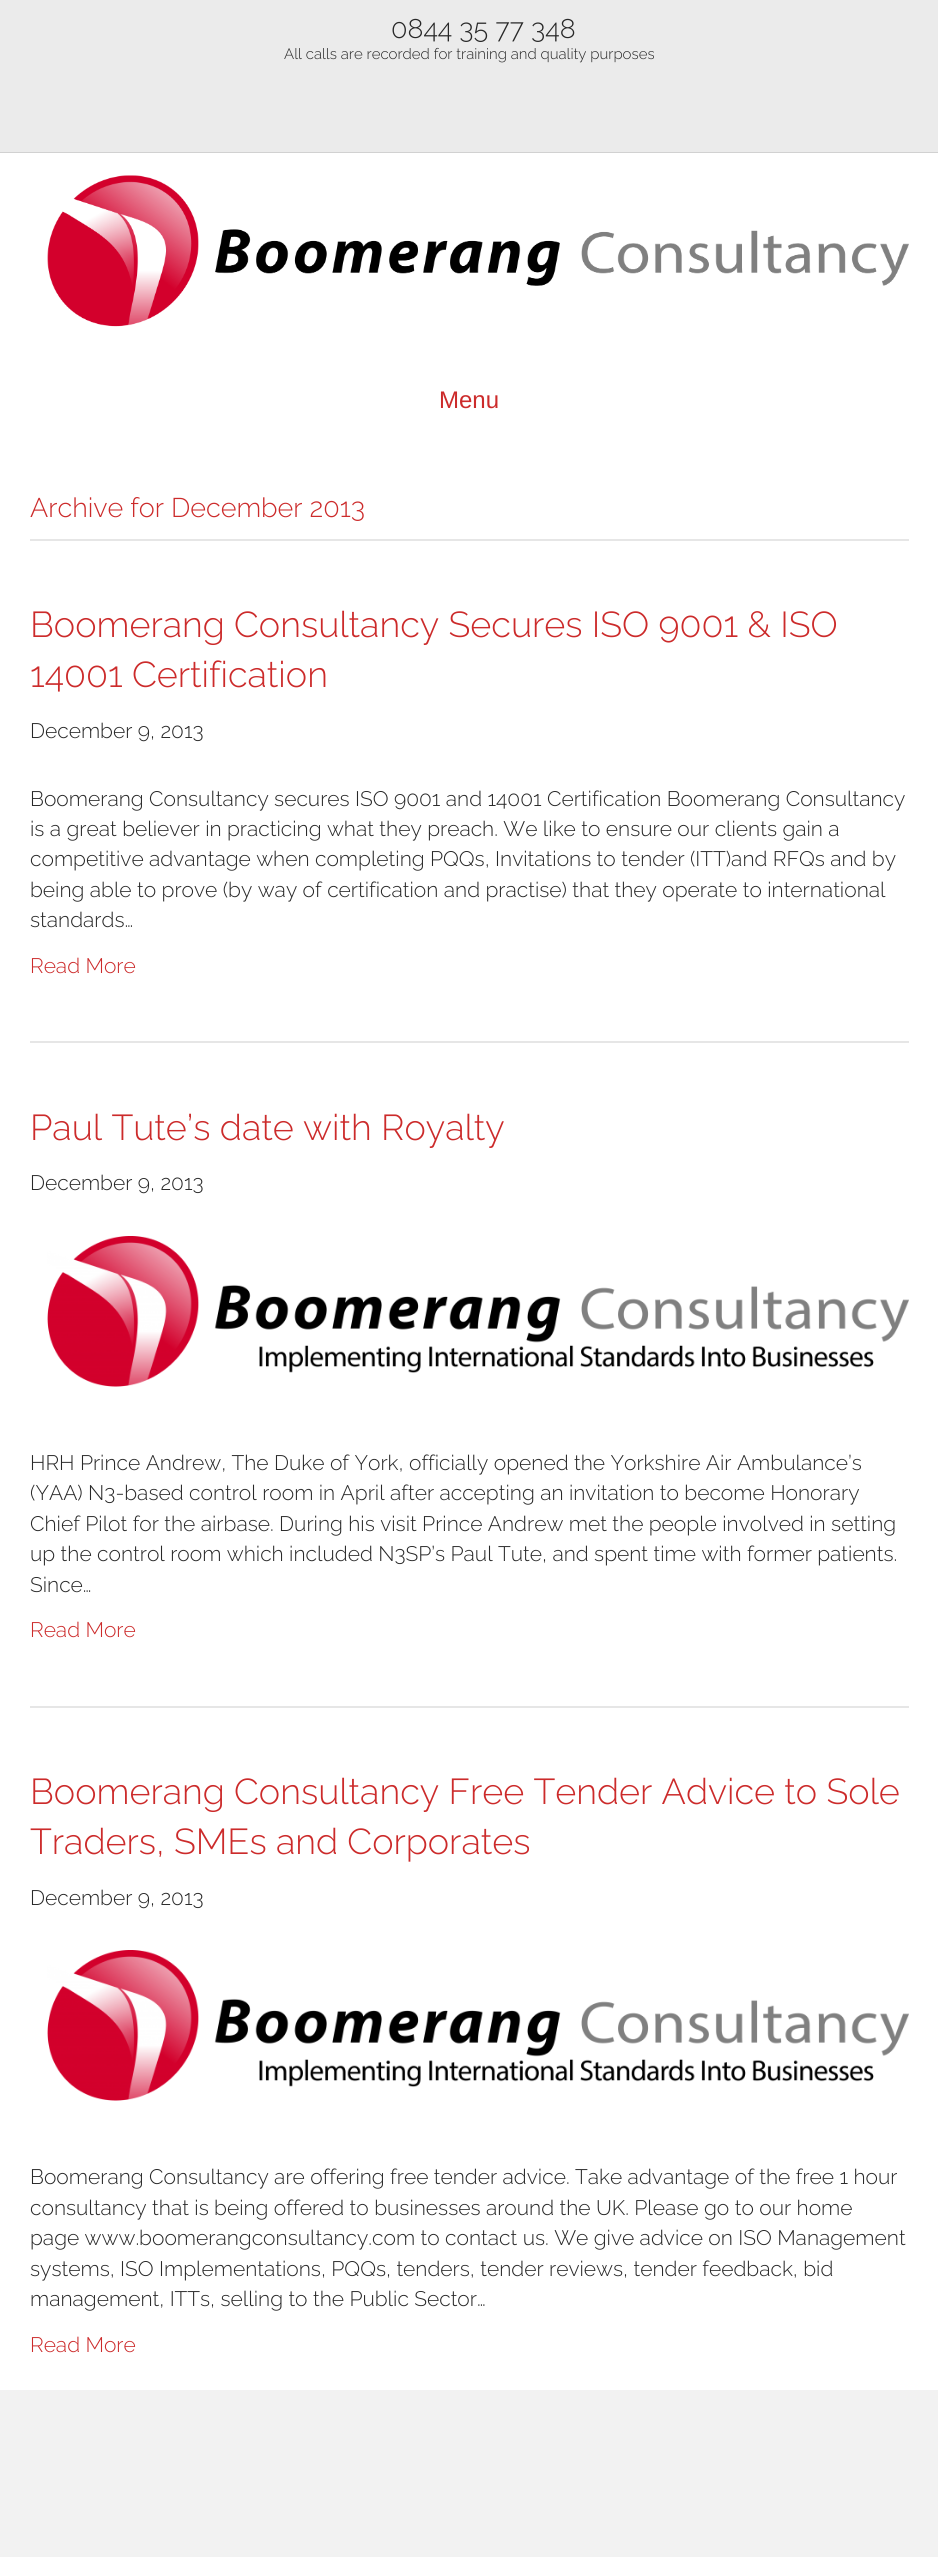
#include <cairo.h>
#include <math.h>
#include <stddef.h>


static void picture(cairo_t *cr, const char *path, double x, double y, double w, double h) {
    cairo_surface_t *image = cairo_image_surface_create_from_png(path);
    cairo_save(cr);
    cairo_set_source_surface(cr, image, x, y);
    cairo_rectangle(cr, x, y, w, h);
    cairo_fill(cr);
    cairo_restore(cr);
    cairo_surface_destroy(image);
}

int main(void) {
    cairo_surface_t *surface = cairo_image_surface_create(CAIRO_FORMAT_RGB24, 938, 2557);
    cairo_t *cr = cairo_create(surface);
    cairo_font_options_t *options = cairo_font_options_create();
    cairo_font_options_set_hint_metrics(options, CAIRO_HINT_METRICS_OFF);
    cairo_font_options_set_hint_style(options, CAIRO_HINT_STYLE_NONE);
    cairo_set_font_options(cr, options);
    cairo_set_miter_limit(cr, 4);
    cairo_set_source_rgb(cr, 0.949, 0.949, 0.949);
    cairo_paint(cr);
    cairo_set_source_rgb(cr, 0.918, 0.918, 0.918);
    cairo_rectangle(cr, 0, 0, 938, 152);
    cairo_fill(cr);
    cairo_set_source_rgb(cr, 0.82, 0.82, 0.82);
    cairo_rectangle(cr, 0, 152, 938, 1);
    cairo_fill(cr);
    cairo_select_font_face(cr, "Raleway Light", CAIRO_FONT_SLANT_NORMAL, CAIRO_FONT_WEIGHT_NORMAL);
    cairo_set_font_size(cr, 27);
    cairo_set_source_rgb(cr, 0.157, 0.157, 0.157);
    cairo_move_to(cr, 391, 38);
    cairo_show_text(cr, "0844 35 77 348");
    cairo_set_font_size(cr, 15);
    cairo_move_to(cr, 284, 59);
    cairo_show_text(cr, "All calls are recorded for training and quality purposes");
    cairo_set_source_rgb(cr, 1, 1, 1);
    cairo_rectangle(cr, 0, 153, 938, 2237);
    cairo_fill(cr);
    picture(cr, "img1.png", 47, 175, 862, 152);
    cairo_select_font_face(cr, "Liberation Sans", CAIRO_FONT_SLANT_NORMAL, CAIRO_FONT_WEIGHT_NORMAL);
    cairo_set_font_size(cr, 24);
    cairo_set_source_rgb(cr, 0.8, 0.169, 0.169);
    cairo_move_to(cr, 439, 408);
    cairo_show_text(cr, "Menu");
    cairo_set_source_rgb(cr, 0.902, 0.902, 0.902);
    cairo_rectangle(cr, 30, 539, 879, 2);
    cairo_fill(cr);
    cairo_select_font_face(cr, "Raleway Light", CAIRO_FONT_SLANT_NORMAL, CAIRO_FONT_WEIGHT_NORMAL);
    cairo_set_font_size(cr, 27);
    cairo_set_source_rgb(cr, 0.8, 0.169, 0.169);
    cairo_move_to(cr, 30, 517);
    cairo_show_text(cr, "Archive for December 2013");
    cairo_set_source_rgb(cr, 0.902, 0.902, 0.902);
    cairo_rectangle(cr, 30, 1041, 879, 2);
    cairo_fill(cr);
    cairo_set_font_size(cr, 36);
    cairo_set_source_rgb(cr, 0.8, 0.169, 0.169);
    cairo_move_to(cr, 30, 637);
    cairo_show_text(cr, "Boomerang Consultancy Secures ISO 9001 & ISO");
    cairo_move_to(cr, 30, 687);
    cairo_show_text(cr, "14001 Certification");
    cairo_set_font_size(cr, 21);
    cairo_set_source_rgb(cr, 0.157, 0.157, 0.157);
    cairo_move_to(cr, 30, 738);
    cairo_show_text(cr, "December 9, 2013");
    cairo_move_to(cr, 30, 806);
    cairo_show_text(cr, "Boomerang Consultancy secures ISO 9001 and 14001 Certification Boomerang Consultancy");
    cairo_move_to(cr, 30, 836);
    cairo_show_text(cr, "is a great believer in practicing what they preach. We like to ensure our clients gain a");
    cairo_move_to(cr, 30, 866);
    cairo_show_text(cr, "competitive advantage when completing PQQs, Invitations to tender (ITT)and RFQs and by");
    cairo_move_to(cr, 30, 897);
    cairo_show_text(cr, "being able to prove (by way of certification and practise) that they operate to international");
    cairo_move_to(cr, 30, 927);
    cairo_show_text(cr, "standards…");
    cairo_set_source_rgb(cr, 0.8, 0.169, 0.169);
    cairo_move_to(cr, 30, 973);
    cairo_show_text(cr, "Read More");
    cairo_set_source_rgb(cr, 0.902, 0.902, 0.902);
    cairo_rectangle(cr, 30, 1706, 879, 2);
    cairo_fill(cr);
    cairo_set_font_size(cr, 36);
    cairo_set_source_rgb(cr, 0.8, 0.169, 0.169);
    cairo_move_to(cr, 30, 1140);
    cairo_show_text(cr, "Paul Tute’s date with Royalty");
    cairo_set_font_size(cr, 21);
    cairo_set_source_rgb(cr, 0.157, 0.157, 0.157);
    cairo_move_to(cr, 30, 1190);
    cairo_show_text(cr, "December 9, 2013");
    picture(cr, "img2.png", 47, 1236, 862, 151);
    cairo_move_to(cr, 30, 1470);
    cairo_show_text(cr, "HRH Prince Andrew, The Duke of York, officially opened the Yorkshire Air Ambulance’s");
    cairo_move_to(cr, 30, 1500);
    cairo_show_text(cr, "(YAA) N3-based control room in April after accepting an invitation to become Honorary");
    cairo_move_to(cr, 30, 1531);
    cairo_show_text(cr, "Chief Pilot for the airbase. During his visit Prince Andrew met the people involved in setting");
    cairo_move_to(cr, 30, 1561);
    cairo_show_text(cr, "up the control room which included N3SP’s Paul Tute, and spent time with former patients.");
    cairo_move_to(cr, 30, 1592);
    cairo_show_text(cr, "Since…");
    cairo_set_source_rgb(cr, 0.8, 0.169, 0.169);
    cairo_move_to(cr, 30, 1637);
    cairo_show_text(cr, "Read More");
    cairo_set_font_size(cr, 36);
    cairo_move_to(cr, 30, 1804);
    cairo_show_text(cr, "Boomerang Consultancy Free Tender Advice to Sole");
    cairo_move_to(cr, 30, 1854);
    cairo_show_text(cr, "Traders, SMEs and Corporates");
    cairo_set_font_size(cr, 21);
    cairo_set_source_rgb(cr, 0.157, 0.157, 0.157);
    cairo_move_to(cr, 30, 1905);
    cairo_show_text(cr, "December 9, 2013");
    picture(cr, "img3.png", 47, 1950, 862, 151);
    cairo_move_to(cr, 30, 2184);
    cairo_show_text(cr, "Boomerang Consultancy are offering free tender advice. Take advantage of the free 1 hour");
    cairo_move_to(cr, 30, 2215);
    cairo_show_text(cr, "consultancy that is being offered to businesses around the UK. Please go to our home");
    cairo_move_to(cr, 30, 2245);
    cairo_show_text(cr, "page www.boomerangconsultancy.com to contact us. We give advice on ISO Management");
    cairo_move_to(cr, 30, 2276);
    cairo_show_text(cr, "systems, ISO Implementations, PQQs, tenders, tender reviews, tender feedback, bid");
    cairo_move_to(cr, 30, 2306);
    cairo_show_text(cr, "management, ITTs, selling to the Public Sector…");
    cairo_set_source_rgb(cr, 0.8, 0.169, 0.169);
    cairo_move_to(cr, 30, 2352);
    cairo_show_text(cr, "Read More");
    cairo_surface_write_to_png(surface, "page.png");
    cairo_font_options_destroy(options);
    cairo_destroy(cr);
    cairo_surface_destroy(surface);
    return 0;
}
